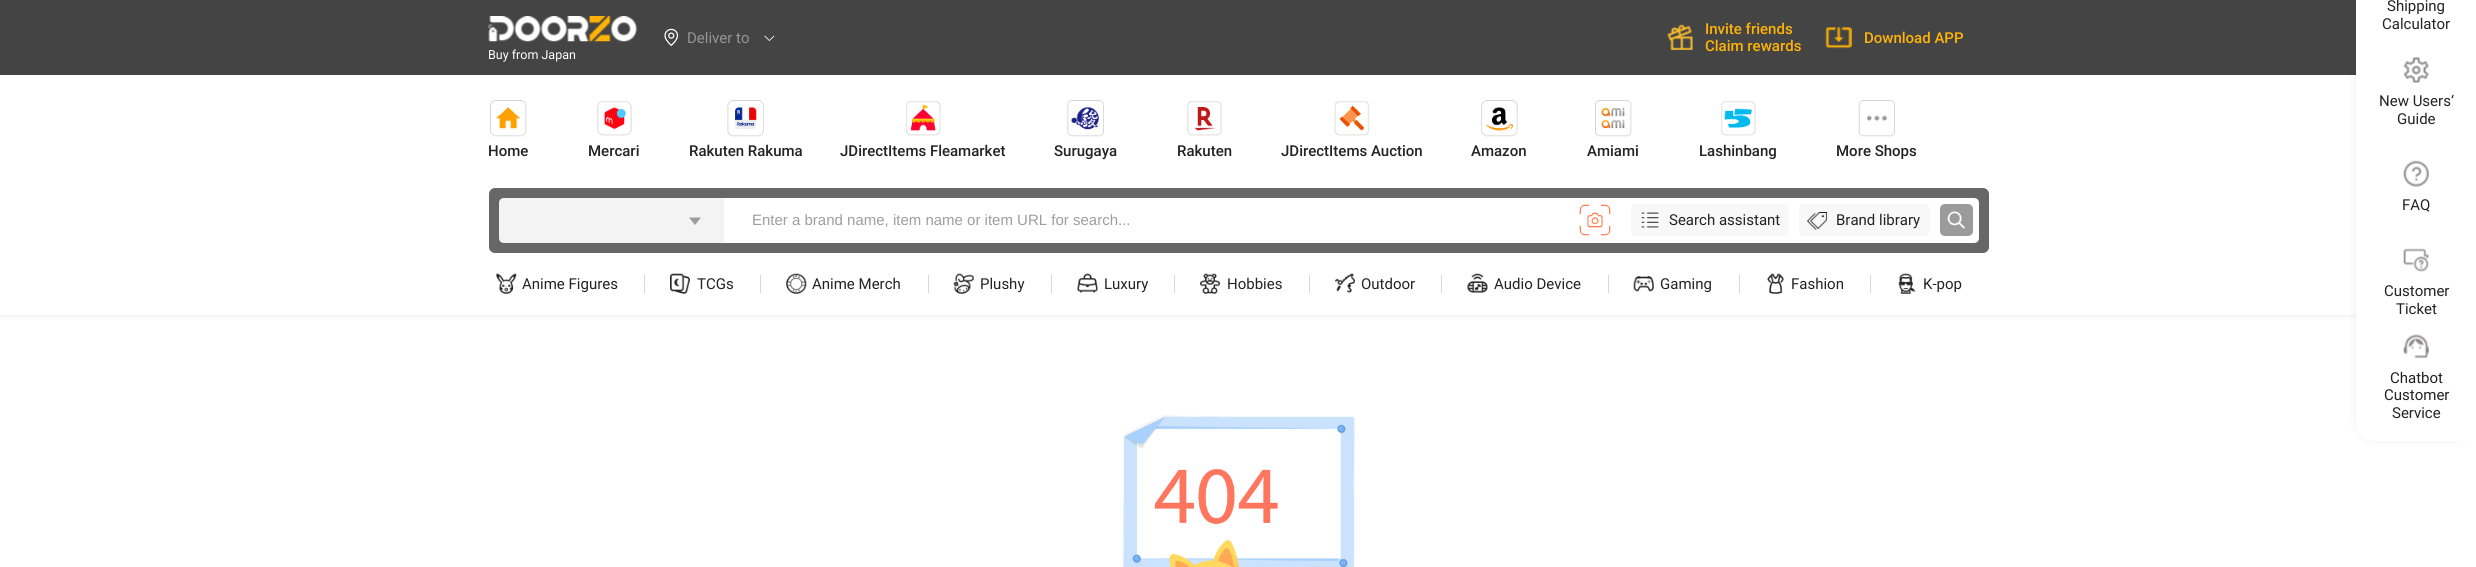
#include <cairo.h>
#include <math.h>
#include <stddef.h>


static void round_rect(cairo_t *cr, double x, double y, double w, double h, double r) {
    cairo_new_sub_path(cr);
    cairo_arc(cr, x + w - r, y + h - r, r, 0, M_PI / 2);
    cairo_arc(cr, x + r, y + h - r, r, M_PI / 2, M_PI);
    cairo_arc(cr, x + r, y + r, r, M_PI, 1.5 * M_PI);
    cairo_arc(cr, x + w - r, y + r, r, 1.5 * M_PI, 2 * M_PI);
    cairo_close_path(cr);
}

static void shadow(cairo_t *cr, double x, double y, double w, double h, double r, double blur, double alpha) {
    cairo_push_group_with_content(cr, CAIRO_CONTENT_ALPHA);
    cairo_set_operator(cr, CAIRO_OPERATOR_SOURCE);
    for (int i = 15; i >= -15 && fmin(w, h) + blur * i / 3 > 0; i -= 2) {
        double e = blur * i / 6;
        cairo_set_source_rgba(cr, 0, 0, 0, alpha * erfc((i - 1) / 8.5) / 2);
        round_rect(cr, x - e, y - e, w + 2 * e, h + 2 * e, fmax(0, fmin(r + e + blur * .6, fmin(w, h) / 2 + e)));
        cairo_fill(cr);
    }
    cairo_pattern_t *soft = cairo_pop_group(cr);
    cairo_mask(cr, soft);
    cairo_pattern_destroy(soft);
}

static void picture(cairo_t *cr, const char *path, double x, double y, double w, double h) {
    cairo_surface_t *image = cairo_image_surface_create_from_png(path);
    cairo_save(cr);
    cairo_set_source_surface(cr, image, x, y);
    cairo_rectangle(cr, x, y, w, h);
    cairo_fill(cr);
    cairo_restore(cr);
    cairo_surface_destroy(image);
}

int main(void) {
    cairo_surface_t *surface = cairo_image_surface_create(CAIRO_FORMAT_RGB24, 2476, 567);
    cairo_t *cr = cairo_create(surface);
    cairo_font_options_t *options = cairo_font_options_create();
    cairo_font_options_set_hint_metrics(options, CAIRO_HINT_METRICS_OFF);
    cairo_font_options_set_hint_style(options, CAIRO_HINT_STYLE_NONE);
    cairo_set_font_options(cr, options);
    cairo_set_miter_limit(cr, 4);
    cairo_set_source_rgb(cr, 1, 1, 1);
    cairo_paint(cr);
    cairo_set_source_rgb(cr, 0, 0, 0);
    shadow(cr, 0, 76, 2476, 240, 0, 2.5, 0.08);
    cairo_set_source_rgb(cr, 0.267, 0.267, 0.267);
    cairo_rectangle(cr, 0, 0, 2356, 75);
    cairo_fill(cr);
    picture(cr, "img1.png", 664, 28, 15, 19);
    cairo_select_font_face(cr, "Roboto", CAIRO_FONT_SLANT_NORMAL, CAIRO_FONT_WEIGHT_NORMAL);
    cairo_set_font_size(cr, 15);
    cairo_set_source_rgb(cr, 0.584, 0.584, 0.588);
    cairo_move_to(cr, 687, 43);
    cairo_show_text(cr, "Deliver to");
    picture(cr, "img2.png", 764, 35, 11, 6);
    picture(cr, "img3.png", 488, 16, 149, 26);
    cairo_set_font_size(cr, 12.5);
    cairo_set_source_rgb(cr, 1, 1, 1);
    cairo_move_to(cr, 488, 59);
    cairo_show_text(cr, "Buy from Japan");
    picture(cr, "img4.png", 1667, 24, 26, 26);
    cairo_select_font_face(cr, "Roboto Medium", CAIRO_FONT_SLANT_NORMAL, CAIRO_FONT_WEIGHT_NORMAL);
    cairo_set_font_size(cr, 15);
    cairo_set_source_rgb(cr, 1, 0.702, 0.024);
    cairo_move_to(cr, 1705, 34);
    cairo_show_text(cr, "Invite friends");
    cairo_move_to(cr, 1705, 51);
    cairo_show_text(cr, "Claim rewards");
    picture(cr, "img5.png", 1825, 27, 27, 22);
    cairo_move_to(cr, 1864, 43);
    cairo_show_text(cr, "Download APP");
    cairo_set_source_rgb(cr, 1, 1, 1);
    cairo_rectangle(cr, 0, 75, 2356, 240);
    cairo_fill(cr);
    cairo_set_source_rgb(cr, 0, 0, 0);
    shadow(cr, 2356, -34, 120, 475, 19, 5, 0.06);
    cairo_set_source_rgb(cr, 1, 1, 1);
    cairo_new_path(cr);
    cairo_move_to(cr, 2375, -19);
    cairo_line_to(cr, 2476, -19);
    cairo_line_to(cr, 2476, 441);
    cairo_line_to(cr, 2375, 441);
    cairo_curve_to(cr, 2364.5, 441, 2356, 432.5, 2356, 422);
    cairo_line_to(cr, 2356, 0);
    cairo_curve_to(cr, 2356, -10.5, 2364.5, -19, 2375, -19);
    cairo_close_path(cr);
    cairo_fill(cr);
    cairo_select_font_face(cr, "Roboto", CAIRO_FONT_SLANT_NORMAL, CAIRO_FONT_WEIGHT_NORMAL);
    cairo_set_source_rgb(cr, 0.137, 0.137, 0.137);
    cairo_move_to(cr, 2387, 11);
    cairo_show_text(cr, "Shipping");
    cairo_move_to(cr, 2382, 29);
    cairo_show_text(cr, "Calculator");
    picture(cr, "img6.png", 2403, 57, 26, 26);
    cairo_move_to(cr, 2379, 106);
    cairo_show_text(cr, "New Users‘");
    cairo_move_to(cr, 2397, 124);
    cairo_show_text(cr, "Guide");
    picture(cr, "img7.png", 2403, 160, 26, 27);
    cairo_move_to(cr, 2402, 210);
    cairo_show_text(cr, "FAQ");
    picture(cr, "img8.png", 2403, 248, 26, 24);
    cairo_move_to(cr, 2384, 296);
    cairo_show_text(cr, "Customer");
    cairo_move_to(cr, 2396, 314);
    cairo_show_text(cr, "Ticket");
    picture(cr, "img9.png", 2403, 334, 26, 25);
    cairo_move_to(cr, 2390, 383);
    cairo_show_text(cr, "Chatbot");
    cairo_move_to(cr, 2384, 400);
    cairo_show_text(cr, "Customer");
    cairo_move_to(cr, 2392, 418);
    cairo_show_text(cr, "Service");
    picture(cr, "img10.png", 490, 100, 37, 37);
    cairo_select_font_face(cr, "Roboto Medium", CAIRO_FONT_SLANT_NORMAL, CAIRO_FONT_WEIGHT_NORMAL);
    cairo_move_to(cr, 488, 156);
    cairo_show_text(cr, "Home");
    picture(cr, "img11.png", 597, 101, 35, 35);
    cairo_move_to(cr, 588, 156);
    cairo_show_text(cr, "Mercari");
    picture(cr, "img12.png", 727, 100, 37, 37);
    cairo_move_to(cr, 689, 156);
    cairo_show_text(cr, "Rakuten Rakuma");
    picture(cr, "img13.png", 906, 101, 35, 35);
    cairo_move_to(cr, 840, 156);
    cairo_show_text(cr, "JDirectItems Fleamarket");
    picture(cr, "img14.png", 1067, 100, 37, 37);
    cairo_move_to(cr, 1054, 156);
    cairo_show_text(cr, "Surugaya");
    picture(cr, "img15.png", 1187, 101, 35, 35);
    cairo_move_to(cr, 1177, 156);
    cairo_show_text(cr, "Rakuten");
    picture(cr, "img16.png", 1334, 101, 36, 35);
    cairo_move_to(cr, 1281, 156);
    cairo_show_text(cr, "JDirectItems Auction");
    picture(cr, "img17.png", 1481, 100, 37, 37);
    cairo_move_to(cr, 1471, 156);
    cairo_show_text(cr, "Amazon");
    picture(cr, "img18.png", 1595, 100, 37, 37);
    cairo_move_to(cr, 1587, 156);
    cairo_show_text(cr, "Amiami");
    picture(cr, "img19.png", 1721, 101, 35, 35);
    cairo_move_to(cr, 1699, 156);
    cairo_show_text(cr, "Lashinbang");
    picture(cr, "img20.png", 1858, 100, 37, 37);
    cairo_move_to(cr, 1836, 156);
    cairo_show_text(cr, "More Shops");
    cairo_set_source_rgb(cr, 0.404, 0.404, 0.404);
    round_rect(cr, 489, 188, 1500, 65, 6);
    cairo_fill(cr);
    cairo_set_source_rgb(cr, 0.953, 0.953, 0.953);
    cairo_new_path(cr);
    cairo_move_to(cr, 504, 198);
    cairo_line_to(cr, 724, 198);
    cairo_line_to(cr, 724, 243);
    cairo_line_to(cr, 504, 243);
    cairo_curve_to(cr, 501, 243, 499, 241, 499, 238);
    cairo_line_to(cr, 499, 203);
    cairo_curve_to(cr, 499, 200, 501, 198, 504, 198);
    cairo_close_path(cr);
    cairo_fill(cr);
    cairo_set_source_rgb(cr, 0.608, 0.608, 0.608);
    cairo_new_path(cr);
    cairo_move_to(cr, 689, 217.5);
    cairo_line_to(cr, 695, 225);
    cairo_line_to(cr, 701, 217.5);
    cairo_close_path(cr);
    cairo_fill(cr);
    cairo_set_source_rgb(cr, 1, 1, 1);
    cairo_new_path(cr);
    cairo_move_to(cr, 724, 198);
    cairo_line_to(cr, 1974, 198);
    cairo_curve_to(cr, 1977, 198, 1979, 200, 1979, 203);
    cairo_line_to(cr, 1979, 238);
    cairo_curve_to(cr, 1979, 241, 1977, 243, 1974, 243);
    cairo_line_to(cr, 724, 243);
    cairo_close_path(cr);
    cairo_fill(cr);
    cairo_select_font_face(cr, "Liberation Sans", CAIRO_FONT_SLANT_NORMAL, CAIRO_FONT_WEIGHT_NORMAL);
    cairo_set_source_rgb(cr, 0.62, 0.62, 0.62);
    cairo_move_to(cr, 752, 225);
    cairo_show_text(cr, "Enter a brand name, item name or item URL for search...");
    picture(cr, "img21.png", 1579, 204, 32, 32);
    cairo_set_source_rgb(cr, 0.969, 0.969, 0.969);
    round_rect(cr, 1631, 204, 158, 32, 5);
    cairo_fill(cr);
    picture(cr, "img22.png", 1641, 212, 18, 16);
    cairo_select_font_face(cr, "Roboto", CAIRO_FONT_SLANT_NORMAL, CAIRO_FONT_WEIGHT_NORMAL);
    cairo_set_source_rgb(cr, 0.137, 0.137, 0.137);
    cairo_move_to(cr, 1669, 225);
    cairo_show_text(cr, "Search assistant");
    cairo_set_source_rgb(cr, 0.969, 0.969, 0.969);
    round_rect(cr, 1799, 204, 131, 32, 5);
    cairo_fill(cr);
    picture(cr, "img23.png", 1807, 212, 21, 19);
    cairo_set_source_rgb(cr, 0.137, 0.137, 0.137);
    cairo_move_to(cr, 1836, 225);
    cairo_show_text(cr, "Brand library");
    cairo_set_source_rgb(cr, 0.608, 0.608, 0.608);
    round_rect(cr, 1940, 204, 33, 32, 5);
    cairo_fill(cr);
    picture(cr, "img24.png", 1947, 211, 18, 18);
    picture(cr, "img25.png", 496, 273, 21, 21);
    cairo_set_source_rgb(cr, 0.137, 0.137, 0.137);
    cairo_move_to(cr, 522, 289);
    cairo_show_text(cr, "Anime Figures");
    cairo_set_source_rgb(cr, 0.847, 0.847, 0.847);
    cairo_rectangle(cr, 644, 275, 1, 18);
    cairo_fill(cr);
    picture(cr, "img26.png", 670, 273, 20, 21);
    cairo_set_source_rgb(cr, 0.137, 0.137, 0.137);
    cairo_move_to(cr, 697, 289);
    cairo_show_text(cr, "TCGs");
    cairo_set_source_rgb(cr, 0.847, 0.847, 0.847);
    cairo_rectangle(cr, 760, 275, 1, 18);
    cairo_fill(cr);
    picture(cr, "img27.png", 786, 273, 21, 21);
    cairo_set_source_rgb(cr, 0.137, 0.137, 0.137);
    cairo_move_to(cr, 812, 289);
    cairo_show_text(cr, "Anime Merch");
    cairo_set_source_rgb(cr, 0.847, 0.847, 0.847);
    cairo_rectangle(cr, 928, 275, 1, 18);
    cairo_fill(cr);
    picture(cr, "img28.png", 953, 273, 21, 21);
    cairo_set_source_rgb(cr, 0.137, 0.137, 0.137);
    cairo_move_to(cr, 980, 289);
    cairo_show_text(cr, "Plushy");
    cairo_set_source_rgb(cr, 0.847, 0.847, 0.847);
    cairo_rectangle(cr, 1051, 275, 1, 18);
    cairo_fill(cr);
    picture(cr, "img29.png", 1077, 273, 21, 20);
    cairo_set_source_rgb(cr, 0.137, 0.137, 0.137);
    cairo_move_to(cr, 1104, 289);
    cairo_show_text(cr, "Luxury");
    cairo_set_source_rgb(cr, 0.847, 0.847, 0.847);
    cairo_rectangle(cr, 1174, 275, 1, 18);
    cairo_fill(cr);
    picture(cr, "img30.png", 1200, 273, 20, 21);
    cairo_set_source_rgb(cr, 0.137, 0.137, 0.137);
    cairo_move_to(cr, 1227, 289);
    cairo_show_text(cr, "Hobbies");
    cairo_set_source_rgb(cr, 0.847, 0.847, 0.847);
    cairo_rectangle(cr, 1309, 275, 1, 18);
    cairo_fill(cr);
    picture(cr, "img31.png", 1335, 273, 20, 20);
    cairo_set_source_rgb(cr, 0.137, 0.137, 0.137);
    cairo_move_to(cr, 1361, 289);
    cairo_show_text(cr, "Outdoor");
    cairo_set_source_rgb(cr, 0.847, 0.847, 0.847);
    cairo_rectangle(cr, 1441, 275, 1, 18);
    cairo_fill(cr);
    picture(cr, "img32.png", 1467, 273, 21, 20);
    cairo_set_source_rgb(cr, 0.137, 0.137, 0.137);
    cairo_move_to(cr, 1494, 289);
    cairo_show_text(cr, "Audio Device");
    cairo_set_source_rgb(cr, 0.847, 0.847, 0.847);
    cairo_rectangle(cr, 1608, 275, 1, 18);
    cairo_fill(cr);
    picture(cr, "img33.png", 1633, 276, 21, 16);
    cairo_set_source_rgb(cr, 0.137, 0.137, 0.137);
    cairo_move_to(cr, 1660, 289);
    cairo_show_text(cr, "Gaming");
    cairo_set_source_rgb(cr, 0.847, 0.847, 0.847);
    cairo_rectangle(cr, 1739, 275, 1, 18);
    cairo_fill(cr);
    picture(cr, "img34.png", 1767, 273, 18, 21);
    cairo_set_source_rgb(cr, 0.137, 0.137, 0.137);
    cairo_move_to(cr, 1791, 289);
    cairo_show_text(cr, "Fashion");
    cairo_set_source_rgb(cr, 0.847, 0.847, 0.847);
    cairo_rectangle(cr, 1870, 275, 1, 18);
    cairo_fill(cr);
    picture(cr, "img35.png", 1898, 273, 18, 21);
    cairo_set_source_rgb(cr, 0.137, 0.137, 0.137);
    cairo_move_to(cr, 1923, 289);
    cairo_show_text(cr, "K-pop");
    picture(cr, "img36.png", 1122, 415, 234, 152);
    cairo_surface_write_to_png(surface, "page.png");
    cairo_font_options_destroy(options);
    cairo_destroy(cr);
    cairo_surface_destroy(surface);
    return 0;
}
